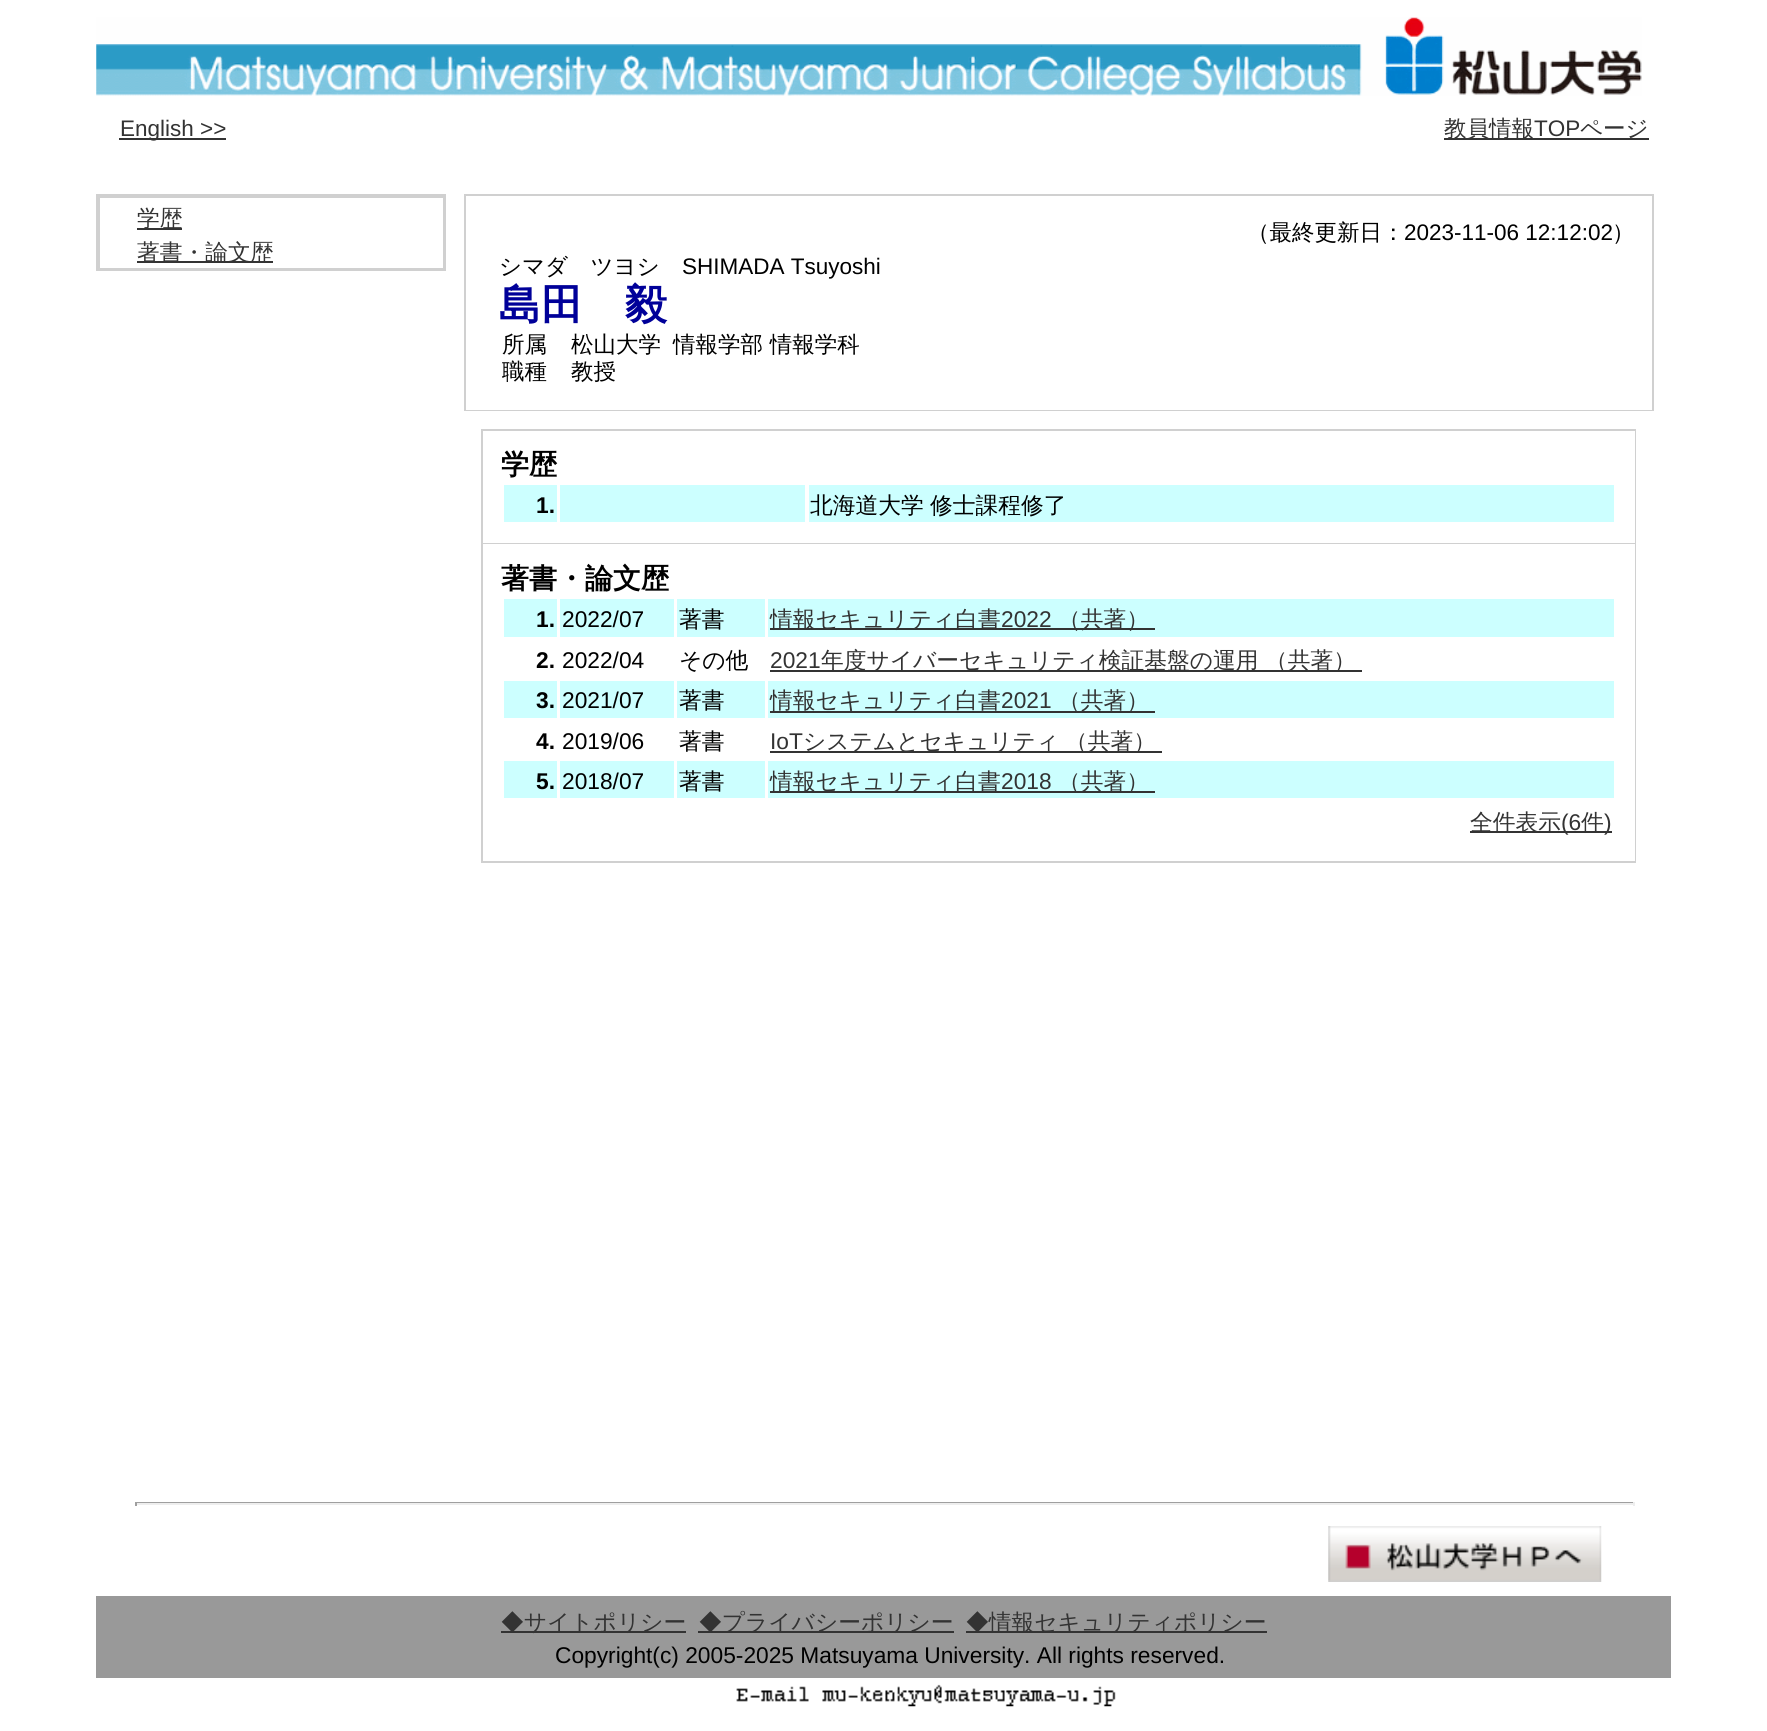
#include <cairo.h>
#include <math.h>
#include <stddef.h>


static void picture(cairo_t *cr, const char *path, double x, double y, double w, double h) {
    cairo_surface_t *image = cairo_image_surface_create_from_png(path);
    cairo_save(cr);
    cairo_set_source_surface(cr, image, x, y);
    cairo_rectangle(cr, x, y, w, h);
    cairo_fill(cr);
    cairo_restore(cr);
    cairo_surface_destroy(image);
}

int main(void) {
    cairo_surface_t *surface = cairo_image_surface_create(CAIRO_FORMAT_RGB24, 1767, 1731);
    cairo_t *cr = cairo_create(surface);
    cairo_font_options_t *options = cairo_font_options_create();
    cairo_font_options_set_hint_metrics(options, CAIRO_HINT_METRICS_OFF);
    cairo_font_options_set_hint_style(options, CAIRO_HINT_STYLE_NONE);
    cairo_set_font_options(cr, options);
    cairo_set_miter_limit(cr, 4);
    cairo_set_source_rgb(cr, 1, 1, 1);
    cairo_paint(cr);
    picture(cr, "img1.png", 96, 17, 1546, 79);
    cairo_set_source_rgb(cr, 0.2, 0.2, 0.2);
    cairo_rectangle(cr, 119, 138, 107, 2);
    cairo_fill(cr);
    cairo_select_font_face(cr, "Liberation Sans", CAIRO_FONT_SLANT_NORMAL, CAIRO_FONT_WEIGHT_NORMAL);
    cairo_set_font_size(cr, 22.5);
    cairo_move_to(cr, 120, 136);
    cairo_show_text(cr, "English >>");
    cairo_rectangle(cr, 1444, 138, 205, 2);
    cairo_fill(cr);
    cairo_select_font_face(cr, "WenQuanYi Zen Hei Medium", CAIRO_FONT_SLANT_NORMAL, CAIRO_FONT_WEIGHT_NORMAL);
    cairo_move_to(cr, 1444, 136);
    cairo_show_text(cr, "教員情報");
    cairo_select_font_face(cr, "Liberation Sans", CAIRO_FONT_SLANT_NORMAL, CAIRO_FONT_WEIGHT_NORMAL);
    cairo_move_to(cr, 1534, 136);
    cairo_show_text(cr, "TOP");
    cairo_select_font_face(cr, "WenQuanYi Zen Hei Medium", CAIRO_FONT_SLANT_NORMAL, CAIRO_FONT_WEIGHT_NORMAL);
    cairo_move_to(cr, 1580, 136);
    cairo_show_text(cr, "ページ");
    cairo_set_source_rgb(cr, 0.816, 0.816, 0.816);
    cairo_rectangle(cr, 96, 194, 350, 77);
    cairo_fill(cr);
    cairo_set_source_rgb(cr, 1, 1, 1);
    cairo_rectangle(cr, 100, 198, 343, 70);
    cairo_fill(cr);
    cairo_set_source_rgb(cr, 0.2, 0.2, 0.2);
    cairo_rectangle(cr, 137, 228, 45, 2);
    cairo_fill(cr);
    cairo_set_font_size(cr, 22.75);
    cairo_move_to(cr, 137, 226);
    cairo_show_text(cr, "学歴");
    cairo_rectangle(cr, 137, 261, 136, 2);
    cairo_fill(cr);
    cairo_move_to(cr, 137, 260);
    cairo_show_text(cr, "著書・論文歴");
    cairo_set_source_rgb(cr, 0.816, 0.816, 0.816);
    cairo_rectangle(cr, 464, 194, 1190, 217);
    cairo_fill(cr);
    cairo_set_source_rgb(cr, 1, 1, 1);
    cairo_rectangle(cr, 466, 196, 1186, 214);
    cairo_fill(cr);
    cairo_set_font_size(cr, 22.5);
    cairo_set_source_rgb(cr, 0, 0, 0);
    cairo_move_to(cr, 1247, 240);
    cairo_show_text(cr, "（最終更新日：");
    cairo_select_font_face(cr, "Liberation Sans", CAIRO_FONT_SLANT_NORMAL, CAIRO_FONT_WEIGHT_NORMAL);
    cairo_move_to(cr, 1404, 240);
    cairo_show_text(cr, "2023-11-06 12:12:02");
    cairo_select_font_face(cr, "WenQuanYi Zen Hei Medium", CAIRO_FONT_SLANT_NORMAL, CAIRO_FONT_WEIGHT_NORMAL);
    cairo_move_to(cr, 1612, 240);
    cairo_show_text(cr, "）");
    cairo_move_to(cr, 499, 274);
    cairo_show_text(cr, "シマダ　ツヨシ");
    cairo_select_font_face(cr, "Liberation Sans", CAIRO_FONT_SLANT_NORMAL, CAIRO_FONT_WEIGHT_NORMAL);
    cairo_move_to(cr, 682, 274);
    cairo_show_text(cr, "SHIMADA Tsuyoshi");
    cairo_select_font_face(cr, "WenQuanYi Zen Hei", CAIRO_FONT_SLANT_NORMAL, CAIRO_FONT_WEIGHT_BOLD);
    cairo_set_font_size(cr, 42);
    cairo_set_source_rgb(cr, 0, 0, 0.6);
    cairo_move_to(cr, 499, 319);
    cairo_show_text(cr, "島田　毅");
    cairo_select_font_face(cr, "WenQuanYi Zen Hei Medium", CAIRO_FONT_SLANT_NORMAL, CAIRO_FONT_WEIGHT_NORMAL);
    cairo_set_font_size(cr, 22.5);
    cairo_set_source_rgb(cr, 0, 0, 0);
    cairo_move_to(cr, 502, 352);
    cairo_show_text(cr, "所属");
    cairo_move_to(cr, 571, 352);
    cairo_show_text(cr, "松山大学");
    cairo_move_to(cr, 673, 352);
    cairo_show_text(cr, "情報学部 情報学科");
    cairo_move_to(cr, 502, 379);
    cairo_show_text(cr, "職種");
    cairo_move_to(cr, 571, 379);
    cairo_show_text(cr, "教授");
    cairo_set_source_rgb(cr, 0.816, 0.816, 0.816);
    cairo_rectangle(cr, 481, 429, 1155, 434);
    cairo_fill(cr);
    cairo_set_source_rgb(cr, 1, 1, 1);
    cairo_rectangle(cr, 483, 431, 1152, 112);
    cairo_fill(cr);
    cairo_select_font_face(cr, "WenQuanYi Zen Hei", CAIRO_FONT_SLANT_NORMAL, CAIRO_FONT_WEIGHT_BOLD);
    cairo_set_font_size(cr, 28);
    cairo_set_source_rgb(cr, 0, 0, 0);
    cairo_move_to(cr, 501, 474);
    cairo_show_text(cr, "学歴");
    cairo_set_source_rgb(cr, 0.8, 1, 1);
    cairo_rectangle(cr, 504, 485, 53, 37);
    cairo_fill(cr);
    cairo_select_font_face(cr, "Liberation Sans", CAIRO_FONT_SLANT_NORMAL, CAIRO_FONT_WEIGHT_BOLD);
    cairo_set_font_size(cr, 22.75);
    cairo_set_source_rgb(cr, 0, 0, 0);
    cairo_move_to(cr, 536, 513);
    cairo_show_text(cr, "1.");
    cairo_set_source_rgb(cr, 0.8, 1, 1);
    cairo_rectangle(cr, 560, 485, 245, 37);
    cairo_fill(cr);
    cairo_rectangle(cr, 809, 485, 805, 37);
    cairo_fill(cr);
    cairo_select_font_face(cr, "WenQuanYi Zen Hei Medium", CAIRO_FONT_SLANT_NORMAL, CAIRO_FONT_WEIGHT_NORMAL);
    cairo_set_source_rgb(cr, 0, 0, 0);
    cairo_move_to(cr, 810, 513);
    cairo_show_text(cr, "北海道大学");
    cairo_move_to(cr, 930, 513);
    cairo_show_text(cr, "修士課程修了");
    cairo_set_source_rgb(cr, 1, 1, 1);
    cairo_rectangle(cr, 483, 544, 1152, 317);
    cairo_fill(cr);
    cairo_select_font_face(cr, "WenQuanYi Zen Hei", CAIRO_FONT_SLANT_NORMAL, CAIRO_FONT_WEIGHT_BOLD);
    cairo_set_font_size(cr, 28);
    cairo_set_source_rgb(cr, 0, 0, 0);
    cairo_move_to(cr, 501, 588);
    cairo_show_text(cr, "著書・論文歴");
    cairo_set_source_rgb(cr, 0.8, 1, 1);
    cairo_rectangle(cr, 504, 599, 53, 38);
    cairo_fill(cr);
    cairo_select_font_face(cr, "Liberation Sans", CAIRO_FONT_SLANT_NORMAL, CAIRO_FONT_WEIGHT_BOLD);
    cairo_set_font_size(cr, 22.75);
    cairo_set_source_rgb(cr, 0, 0, 0);
    cairo_move_to(cr, 536, 627);
    cairo_show_text(cr, "1.");
    cairo_set_source_rgb(cr, 0.8, 1, 1);
    cairo_rectangle(cr, 560, 599, 114, 38);
    cairo_fill(cr);
    cairo_select_font_face(cr, "Liberation Sans", CAIRO_FONT_SLANT_NORMAL, CAIRO_FONT_WEIGHT_NORMAL);
    cairo_set_source_rgb(cr, 0, 0, 0);
    cairo_move_to(cr, 562, 627);
    cairo_show_text(cr, "2022/07");
    cairo_set_source_rgb(cr, 0.8, 1, 1);
    cairo_rectangle(cr, 677, 599, 88, 38);
    cairo_fill(cr);
    cairo_select_font_face(cr, "WenQuanYi Zen Hei Medium", CAIRO_FONT_SLANT_NORMAL, CAIRO_FONT_WEIGHT_NORMAL);
    cairo_set_source_rgb(cr, 0, 0, 0);
    cairo_move_to(cr, 679, 627);
    cairo_show_text(cr, "著書");
    cairo_set_source_rgb(cr, 0.8, 1, 1);
    cairo_rectangle(cr, 768, 599, 846, 38);
    cairo_fill(cr);
    cairo_set_source_rgb(cr, 0.2, 0.2, 0.2);
    cairo_rectangle(cr, 770, 628, 385, 2);
    cairo_fill(cr);
    cairo_move_to(cr, 770, 627);
    cairo_show_text(cr, "情報セキュリティ白書");
    cairo_select_font_face(cr, "Liberation Sans", CAIRO_FONT_SLANT_NORMAL, CAIRO_FONT_WEIGHT_NORMAL);
    cairo_move_to(cr, 1001, 627);
    cairo_show_text(cr, "2022");
    cairo_select_font_face(cr, "WenQuanYi Zen Hei Medium", CAIRO_FONT_SLANT_NORMAL, CAIRO_FONT_WEIGHT_NORMAL);
    cairo_move_to(cr, 1058, 627);
    cairo_show_text(cr, "（共著）");
    cairo_select_font_face(cr, "Liberation Sans", CAIRO_FONT_SLANT_NORMAL, CAIRO_FONT_WEIGHT_BOLD);
    cairo_set_source_rgb(cr, 0, 0, 0);
    cairo_move_to(cr, 536, 668);
    cairo_show_text(cr, "2.");
    cairo_select_font_face(cr, "Liberation Sans", CAIRO_FONT_SLANT_NORMAL, CAIRO_FONT_WEIGHT_NORMAL);
    cairo_move_to(cr, 562, 668);
    cairo_show_text(cr, "2022/04");
    cairo_select_font_face(cr, "WenQuanYi Zen Hei Medium", CAIRO_FONT_SLANT_NORMAL, CAIRO_FONT_WEIGHT_NORMAL);
    cairo_move_to(cr, 679, 668);
    cairo_show_text(cr, "その他");
    cairo_select_font_face(cr, "Liberation Sans", CAIRO_FONT_SLANT_NORMAL, CAIRO_FONT_WEIGHT_NORMAL);
    cairo_set_source_rgb(cr, 0.2, 0.2, 0.2);
    cairo_move_to(cr, 770, 668);
    cairo_show_text(cr, "2021");
    cairo_rectangle(cr, 770, 670, 592, 2);
    cairo_fill(cr);
    cairo_select_font_face(cr, "WenQuanYi Zen Hei Medium", CAIRO_FONT_SLANT_NORMAL, CAIRO_FONT_WEIGHT_NORMAL);
    cairo_move_to(cr, 821, 668);
    cairo_show_text(cr, "年度サイバーセキュリティ検証基盤の運用");
    cairo_move_to(cr, 1265, 668);
    cairo_show_text(cr, "（共著）");
    cairo_set_source_rgb(cr, 0.8, 1, 1);
    cairo_rectangle(cr, 504, 681, 53, 37);
    cairo_fill(cr);
    cairo_select_font_face(cr, "Liberation Sans", CAIRO_FONT_SLANT_NORMAL, CAIRO_FONT_WEIGHT_BOLD);
    cairo_set_source_rgb(cr, 0, 0, 0);
    cairo_move_to(cr, 536, 708);
    cairo_show_text(cr, "3.");
    cairo_set_source_rgb(cr, 0.8, 1, 1);
    cairo_rectangle(cr, 560, 681, 114, 37);
    cairo_fill(cr);
    cairo_select_font_face(cr, "Liberation Sans", CAIRO_FONT_SLANT_NORMAL, CAIRO_FONT_WEIGHT_NORMAL);
    cairo_set_source_rgb(cr, 0, 0, 0);
    cairo_move_to(cr, 562, 708);
    cairo_show_text(cr, "2021/07");
    cairo_set_source_rgb(cr, 0.8, 1, 1);
    cairo_rectangle(cr, 677, 681, 88, 37);
    cairo_fill(cr);
    cairo_select_font_face(cr, "WenQuanYi Zen Hei Medium", CAIRO_FONT_SLANT_NORMAL, CAIRO_FONT_WEIGHT_NORMAL);
    cairo_set_source_rgb(cr, 0, 0, 0);
    cairo_move_to(cr, 679, 708);
    cairo_show_text(cr, "著書");
    cairo_set_source_rgb(cr, 0.8, 1, 1);
    cairo_rectangle(cr, 768, 681, 846, 37);
    cairo_fill(cr);
    cairo_set_source_rgb(cr, 0.2, 0.2, 0.2);
    cairo_rectangle(cr, 770, 711, 385, 2);
    cairo_fill(cr);
    cairo_move_to(cr, 770, 708);
    cairo_show_text(cr, "情報セキュリティ白書");
    cairo_select_font_face(cr, "Liberation Sans", CAIRO_FONT_SLANT_NORMAL, CAIRO_FONT_WEIGHT_NORMAL);
    cairo_move_to(cr, 1001, 708);
    cairo_show_text(cr, "2021");
    cairo_select_font_face(cr, "WenQuanYi Zen Hei Medium", CAIRO_FONT_SLANT_NORMAL, CAIRO_FONT_WEIGHT_NORMAL);
    cairo_move_to(cr, 1058, 708);
    cairo_show_text(cr, "（共著）");
    cairo_select_font_face(cr, "Liberation Sans", CAIRO_FONT_SLANT_NORMAL, CAIRO_FONT_WEIGHT_BOLD);
    cairo_set_source_rgb(cr, 0, 0, 0);
    cairo_move_to(cr, 536, 749);
    cairo_show_text(cr, "4.");
    cairo_select_font_face(cr, "Liberation Sans", CAIRO_FONT_SLANT_NORMAL, CAIRO_FONT_WEIGHT_NORMAL);
    cairo_move_to(cr, 562, 749);
    cairo_show_text(cr, "2019/06");
    cairo_select_font_face(cr, "WenQuanYi Zen Hei Medium", CAIRO_FONT_SLANT_NORMAL, CAIRO_FONT_WEIGHT_NORMAL);
    cairo_move_to(cr, 679, 749);
    cairo_show_text(cr, "著書");
    cairo_select_font_face(cr, "Liberation Sans", CAIRO_FONT_SLANT_NORMAL, CAIRO_FONT_WEIGHT_NORMAL);
    cairo_set_source_rgb(cr, 0.2, 0.2, 0.2);
    cairo_move_to(cr, 770, 749);
    cairo_show_text(cr, "IoT");
    cairo_rectangle(cr, 770, 751, 392, 2);
    cairo_fill(cr);
    cairo_select_font_face(cr, "WenQuanYi Zen Hei Medium", CAIRO_FONT_SLANT_NORMAL, CAIRO_FONT_WEIGHT_NORMAL);
    cairo_move_to(cr, 803, 749);
    cairo_show_text(cr, "システムとセキュリティ");
    cairo_move_to(cr, 1065, 749);
    cairo_show_text(cr, "（共著）");
    cairo_set_source_rgb(cr, 0.8, 1, 1);
    cairo_rectangle(cr, 504, 761, 53, 37);
    cairo_fill(cr);
    cairo_select_font_face(cr, "Liberation Sans", CAIRO_FONT_SLANT_NORMAL, CAIRO_FONT_WEIGHT_BOLD);
    cairo_set_source_rgb(cr, 0, 0, 0);
    cairo_move_to(cr, 536, 789);
    cairo_show_text(cr, "5.");
    cairo_set_source_rgb(cr, 0.8, 1, 1);
    cairo_rectangle(cr, 560, 761, 114, 37);
    cairo_fill(cr);
    cairo_select_font_face(cr, "Liberation Sans", CAIRO_FONT_SLANT_NORMAL, CAIRO_FONT_WEIGHT_NORMAL);
    cairo_set_source_rgb(cr, 0, 0, 0);
    cairo_move_to(cr, 562, 789);
    cairo_show_text(cr, "2018/07");
    cairo_set_source_rgb(cr, 0.8, 1, 1);
    cairo_rectangle(cr, 677, 761, 88, 37);
    cairo_fill(cr);
    cairo_select_font_face(cr, "WenQuanYi Zen Hei Medium", CAIRO_FONT_SLANT_NORMAL, CAIRO_FONT_WEIGHT_NORMAL);
    cairo_set_source_rgb(cr, 0, 0, 0);
    cairo_move_to(cr, 679, 789);
    cairo_show_text(cr, "著書");
    cairo_set_source_rgb(cr, 0.8, 1, 1);
    cairo_rectangle(cr, 768, 761, 846, 37);
    cairo_fill(cr);
    cairo_set_source_rgb(cr, 0.2, 0.2, 0.2);
    cairo_rectangle(cr, 770, 791, 385, 2);
    cairo_fill(cr);
    cairo_move_to(cr, 770, 789);
    cairo_show_text(cr, "情報セキュリティ白書");
    cairo_select_font_face(cr, "Liberation Sans", CAIRO_FONT_SLANT_NORMAL, CAIRO_FONT_WEIGHT_NORMAL);
    cairo_move_to(cr, 1001, 789);
    cairo_show_text(cr, "2018");
    cairo_select_font_face(cr, "WenQuanYi Zen Hei Medium", CAIRO_FONT_SLANT_NORMAL, CAIRO_FONT_WEIGHT_NORMAL);
    cairo_move_to(cr, 1058, 789);
    cairo_show_text(cr, "（共著）");
    cairo_rectangle(cr, 1470, 831, 142, 2);
    cairo_fill(cr);
    cairo_move_to(cr, 1470, 830);
    cairo_show_text(cr, "全件表示");
    cairo_select_font_face(cr, "Liberation Sans", CAIRO_FONT_SLANT_NORMAL, CAIRO_FONT_WEIGHT_NORMAL);
    cairo_move_to(cr, 1561, 830);
    cairo_show_text(cr, "(6");
    cairo_select_font_face(cr, "WenQuanYi Zen Hei Medium", CAIRO_FONT_SLANT_NORMAL, CAIRO_FONT_WEIGHT_NORMAL);
    cairo_move_to(cr, 1581, 830);
    cairo_show_text(cr, "件");
    cairo_select_font_face(cr, "Liberation Sans", CAIRO_FONT_SLANT_NORMAL, CAIRO_FONT_WEIGHT_NORMAL);
    cairo_move_to(cr, 1604, 830);
    cairo_show_text(cr, ")");
    cairo_set_source_rgb(cr, 0.624, 0.624, 0.624);
    cairo_rectangle(cr, 135, 1502, 1500, 1);
    cairo_fill(cr);
    cairo_set_source_rgb(cr, 0.933, 0.933, 0.933);
    cairo_rectangle(cr, 1633, 1502, 2, 4);
    cairo_fill(cr);
    cairo_rectangle(cr, 135, 1503, 1500, 2);
    cairo_fill(cr);
    cairo_set_source_rgb(cr, 0.624, 0.624, 0.624);
    cairo_rectangle(cr, 135, 1502, 2, 4);
    cairo_fill(cr);
    picture(cr, "img2.png", 1328, 1526, 274, 56);
    cairo_set_source_rgb(cr, 0.6, 0.6, 0.6);
    cairo_rectangle(cr, 96, 1596, 1575, 82);
    cairo_fill(cr);
    cairo_set_source_rgb(cr, 0.2, 0.2, 0.2);
    cairo_rectangle(cr, 501, 1631, 185, 2);
    cairo_fill(cr);
    cairo_select_font_face(cr, "WenQuanYi Zen Hei Medium", CAIRO_FONT_SLANT_NORMAL, CAIRO_FONT_WEIGHT_NORMAL);
    cairo_move_to(cr, 501, 1630);
    cairo_show_text(cr, "◆サイトポリシー");
    cairo_rectangle(cr, 698, 1631, 256, 2);
    cairo_fill(cr);
    cairo_move_to(cr, 699, 1630);
    cairo_show_text(cr, "◆プライバシーポリシー");
    cairo_rectangle(cr, 966, 1631, 301, 2);
    cairo_fill(cr);
    cairo_move_to(cr, 966, 1630);
    cairo_show_text(cr, "◆情報セキュリティポリシー");
    cairo_select_font_face(cr, "Liberation Sans", CAIRO_FONT_SLANT_NORMAL, CAIRO_FONT_WEIGHT_NORMAL);
    cairo_set_source_rgb(cr, 0, 0, 0);
    cairo_move_to(cr, 555, 1663);
    cairo_show_text(cr, "Copyright(c) 2005-2025 Matsuyama University. All rights reserved.");
    picture(cr, "img3.png", 736, 1684, 380, 23);
    cairo_surface_write_to_png(surface, "page.png");
    cairo_font_options_destroy(options);
    cairo_destroy(cr);
    cairo_surface_destroy(surface);
    return 0;
}
